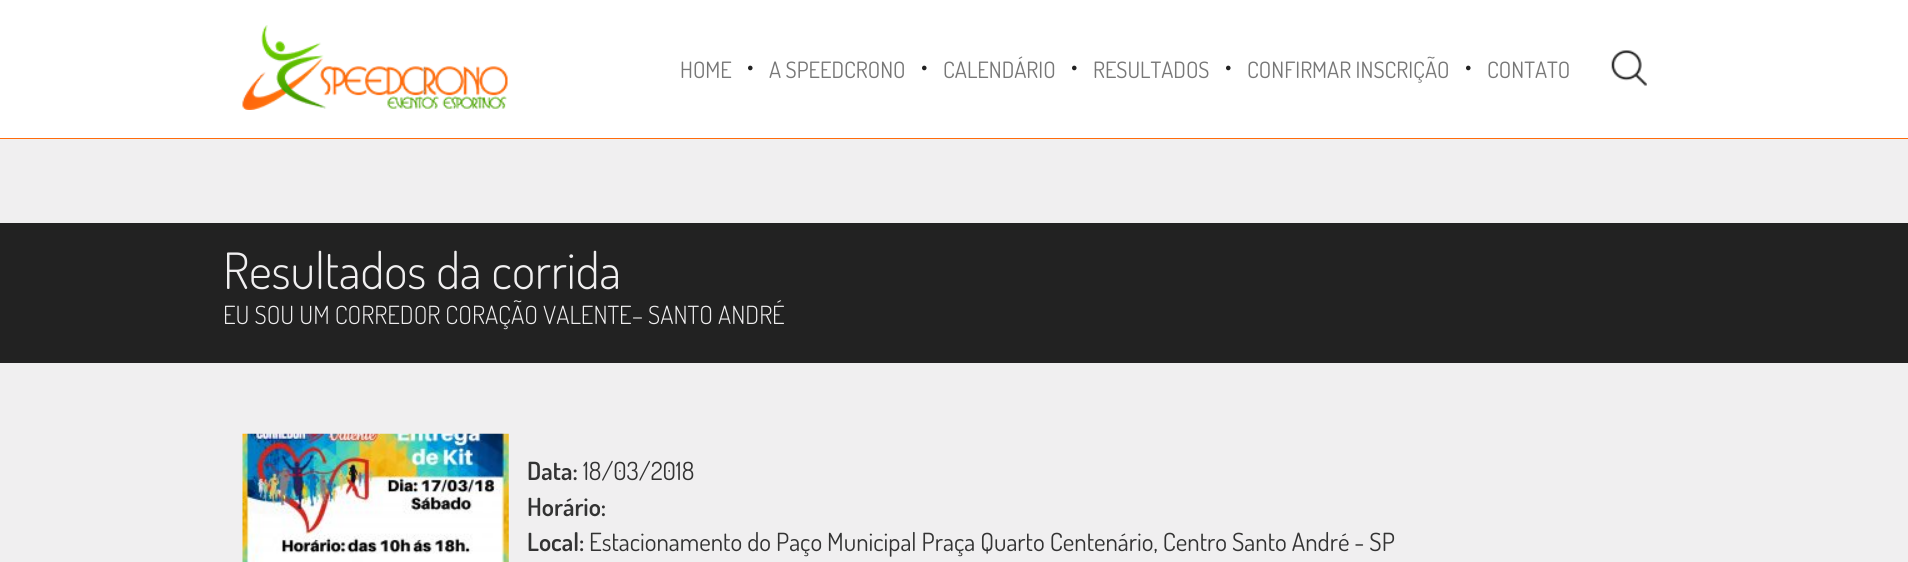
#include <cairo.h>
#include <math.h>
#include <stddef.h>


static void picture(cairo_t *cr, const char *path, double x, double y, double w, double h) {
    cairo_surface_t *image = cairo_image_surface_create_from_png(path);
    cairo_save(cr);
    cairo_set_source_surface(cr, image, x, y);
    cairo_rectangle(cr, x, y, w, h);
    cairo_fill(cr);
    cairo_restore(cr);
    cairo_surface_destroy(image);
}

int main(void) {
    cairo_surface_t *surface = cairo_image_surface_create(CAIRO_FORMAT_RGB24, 1908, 562);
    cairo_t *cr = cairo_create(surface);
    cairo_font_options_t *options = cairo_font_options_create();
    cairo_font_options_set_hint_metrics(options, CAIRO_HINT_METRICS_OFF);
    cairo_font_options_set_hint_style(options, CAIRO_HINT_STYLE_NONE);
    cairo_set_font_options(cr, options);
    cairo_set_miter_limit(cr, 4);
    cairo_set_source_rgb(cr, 0.941, 0.937, 0.941);
    cairo_paint(cr);
    cairo_set_source_rgb(cr, 1, 1, 1);
    cairo_rectangle(cr, 0, 0, 1908, 138);
    cairo_fill(cr);
    cairo_set_source_rgb(cr, 1, 0.42, 0.047);
    cairo_rectangle(cr, 0, 138, 1908, 1);
    cairo_fill(cr);
    picture(cr, "img1.png", 242, 25, 266, 85);
    cairo_select_font_face(cr, "Dosis", CAIRO_FONT_SLANT_NORMAL, CAIRO_FONT_WEIGHT_NORMAL);
    cairo_set_font_size(cr, 22.5);
    cairo_set_source_rgb(cr, 0.467, 0.467, 0.467);
    cairo_move_to(cr, 680, 78);
    cairo_show_text(cr, "HOME");
    cairo_set_font_size(cr, 50);
    cairo_set_source_rgb(cr, 0.133, 0.133, 0.133);
    cairo_move_to(cr, 746, 70);
    cairo_show_text(cr, ".");
    cairo_set_font_size(cr, 22.5);
    cairo_set_source_rgb(cr, 0.467, 0.467, 0.467);
    cairo_move_to(cr, 769, 78);
    cairo_show_text(cr, "A SPEEDCRONO");
    cairo_set_font_size(cr, 50);
    cairo_set_source_rgb(cr, 0.133, 0.133, 0.133);
    cairo_move_to(cr, 920, 70);
    cairo_show_text(cr, ".");
    cairo_set_font_size(cr, 22.5);
    cairo_set_source_rgb(cr, 0.467, 0.467, 0.467);
    cairo_move_to(cr, 943, 78);
    cairo_show_text(cr, "CALENDÁRIO");
    cairo_set_font_size(cr, 50);
    cairo_set_source_rgb(cr, 0.133, 0.133, 0.133);
    cairo_move_to(cr, 1070, 70);
    cairo_show_text(cr, ".");
    cairo_set_font_size(cr, 22.5);
    cairo_set_source_rgb(cr, 0.467, 0.467, 0.467);
    cairo_move_to(cr, 1093, 78);
    cairo_show_text(cr, "RESULTADOS");
    cairo_set_font_size(cr, 50);
    cairo_set_source_rgb(cr, 0.133, 0.133, 0.133);
    cairo_move_to(cr, 1224, 70);
    cairo_show_text(cr, ".");
    cairo_set_font_size(cr, 22.5);
    cairo_set_source_rgb(cr, 0.467, 0.467, 0.467);
    cairo_move_to(cr, 1247, 78);
    cairo_show_text(cr, "CONFIRMAR INSCRIÇÃO");
    cairo_set_font_size(cr, 50);
    cairo_set_source_rgb(cr, 0.133, 0.133, 0.133);
    cairo_move_to(cr, 1464, 70);
    cairo_show_text(cr, ".");
    cairo_set_font_size(cr, 22.5);
    cairo_set_source_rgb(cr, 0.467, 0.467, 0.467);
    cairo_move_to(cr, 1487, 78);
    cairo_show_text(cr, "CONTATO");
    picture(cr, "img2.png", 1611, 50, 36, 36);
    cairo_set_source_rgb(cr, 0.133, 0.133, 0.133);
    cairo_rectangle(cr, 0, 223, 1908, 140);
    cairo_fill(cr);
    cairo_select_font_face(cr, "Dosis Light", CAIRO_FONT_SLANT_NORMAL, CAIRO_FONT_WEIGHT_NORMAL);
    cairo_set_font_size(cr, 50);
    cairo_set_source_rgb(cr, 0.941, 0.937, 0.941);
    cairo_move_to(cr, 223, 289);
    cairo_show_text(cr, "Resultados da corrida");
    cairo_set_font_size(cr, 25);
    cairo_move_to(cr, 223, 324);
    cairo_show_text(cr, "EU SOU UM CORREDOR CORAÇÃO VALENTE– SANTO ANDRÉ");
    picture(cr, "img3.png", 242, 433, 267, 129);
    cairo_select_font_face(cr, "Dosis SemiBold", CAIRO_FONT_SLANT_NORMAL, CAIRO_FONT_WEIGHT_NORMAL);
    cairo_set_source_rgb(cr, 0.2, 0.2, 0.2);
    cairo_move_to(cr, 527, 480);
    cairo_show_text(cr, "Data:");
    cairo_select_font_face(cr, "Dosis", CAIRO_FONT_SLANT_NORMAL, CAIRO_FONT_WEIGHT_NORMAL);
    cairo_move_to(cr, 583, 480);
    cairo_show_text(cr, "18/03/2018");
    cairo_select_font_face(cr, "Dosis SemiBold", CAIRO_FONT_SLANT_NORMAL, CAIRO_FONT_WEIGHT_NORMAL);
    cairo_move_to(cr, 527, 516);
    cairo_show_text(cr, "Horário:");
    cairo_move_to(cr, 527, 551);
    cairo_show_text(cr, "Local:");
    cairo_select_font_face(cr, "Dosis", CAIRO_FONT_SLANT_NORMAL, CAIRO_FONT_WEIGHT_NORMAL);
    cairo_move_to(cr, 589, 551);
    cairo_show_text(cr, "Estacionamento do Paço Municipal Praça Quarto Centenário, Centro Santo André - SP");
    cairo_surface_write_to_png(surface, "page.png");
    cairo_font_options_destroy(options);
    cairo_destroy(cr);
    cairo_surface_destroy(surface);
    return 0;
}
